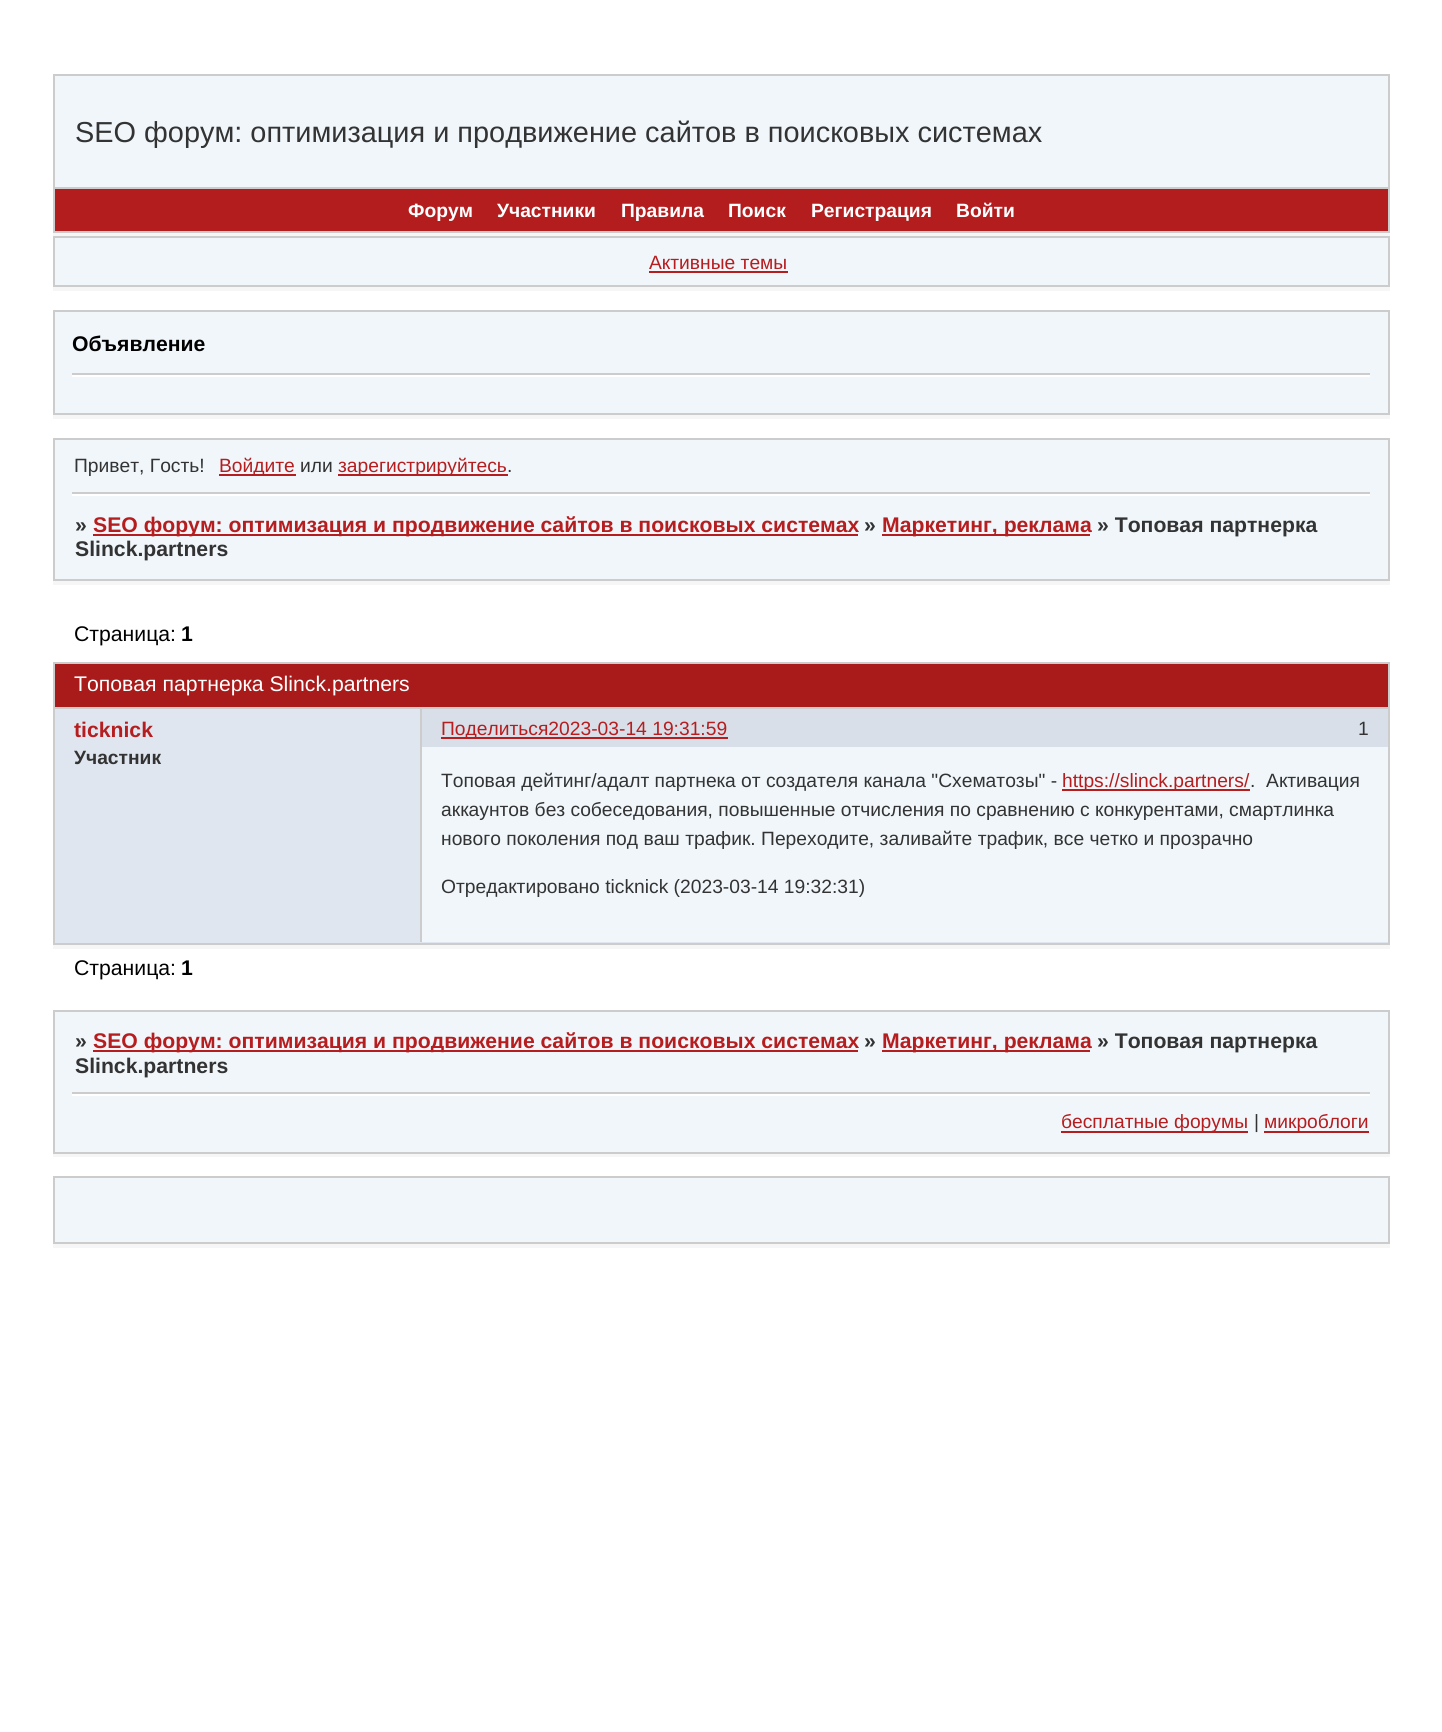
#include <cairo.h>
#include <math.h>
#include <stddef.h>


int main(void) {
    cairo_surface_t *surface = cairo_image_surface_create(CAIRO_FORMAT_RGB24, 1442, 1732);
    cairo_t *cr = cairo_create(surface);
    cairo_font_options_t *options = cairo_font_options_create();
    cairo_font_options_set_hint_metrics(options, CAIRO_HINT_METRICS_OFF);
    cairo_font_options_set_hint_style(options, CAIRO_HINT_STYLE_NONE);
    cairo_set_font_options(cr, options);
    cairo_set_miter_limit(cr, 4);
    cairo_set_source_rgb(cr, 1, 1, 1);
    cairo_paint(cr);
    cairo_set_source_rgb(cr, 0.941, 0.961, 0.98);
    cairo_rectangle(cr, 55, 76, 1333, 111);
    cairo_fill(cr);
    cairo_set_source_rgb(cr, 0.8, 0.8, 0.8);
    cairo_rectangle(cr, 53, 74, 1337, 2);
    cairo_fill(cr);
    cairo_rectangle(cr, 1388, 74, 2, 113);
    cairo_fill(cr);
    cairo_rectangle(cr, 53, 74, 2, 113);
    cairo_fill(cr);
    cairo_select_font_face(cr, "Liberation Sans", CAIRO_FONT_SLANT_NORMAL, CAIRO_FONT_WEIGHT_NORMAL);
    cairo_set_font_size(cr, 28.9);
    cairo_set_source_rgb(cr, 0.2, 0.2, 0.2);
    cairo_move_to(cr, 75, 142);
    cairo_show_text(cr, "SEO форум: оптимизация и продвижение сайтов в поисковых системах");
    cairo_set_source_rgb(cr, 0.961, 0.961, 0.961);
    cairo_rectangle(cr, 53, 233, 1337, 3);
    cairo_fill(cr);
    cairo_set_source_rgb(cr, 0.702, 0.114, 0.118);
    cairo_rectangle(cr, 54, 188, 1335, 44);
    cairo_fill_preserve(cr);
    cairo_set_source_rgb(cr, 0.8, 0.8, 0.8);
    cairo_stroke(cr);
    cairo_select_font_face(cr, "Liberation Sans", CAIRO_FONT_SLANT_NORMAL, CAIRO_FONT_WEIGHT_BOLD);
    cairo_set_font_size(cr, 19.25);
    cairo_set_source_rgb(cr, 1, 1, 1);
    cairo_move_to(cr, 408, 217);
    cairo_show_text(cr, "Форум");
    cairo_move_to(cr, 497, 217);
    cairo_show_text(cr, "Участники");
    cairo_move_to(cr, 621, 217);
    cairo_show_text(cr, "Правила");
    cairo_move_to(cr, 728, 217);
    cairo_show_text(cr, "Поиск");
    cairo_move_to(cr, 811, 217);
    cairo_show_text(cr, "Регистрация");
    cairo_move_to(cr, 956, 217);
    cairo_show_text(cr, "Войти");
    cairo_set_source_rgb(cr, 0.961, 0.961, 0.961);
    cairo_rectangle(cr, 53, 287, 1337, 4);
    cairo_fill(cr);
    cairo_set_source_rgb(cr, 0.941, 0.961, 0.98);
    cairo_rectangle(cr, 54, 237, 1335, 49);
    cairo_fill_preserve(cr);
    cairo_set_source_rgb(cr, 0.8, 0.8, 0.8);
    cairo_stroke(cr);
    cairo_select_font_face(cr, "Liberation Sans", CAIRO_FONT_SLANT_NORMAL, CAIRO_FONT_WEIGHT_NORMAL);
    cairo_set_source_rgb(cr, 0.714, 0.114, 0.122);
    cairo_move_to(cr, 649, 269);
    cairo_show_text(cr, "Активные темы");
    cairo_rectangle(cr, 649, 271, 139, 2);
    cairo_fill(cr);
    cairo_set_source_rgb(cr, 0.961, 0.961, 0.961);
    cairo_rectangle(cr, 53, 415, 1337, 4);
    cairo_fill(cr);
    cairo_set_source_rgb(cr, 0.941, 0.961, 0.98);
    cairo_rectangle(cr, 54, 311, 1335, 103);
    cairo_fill_preserve(cr);
    cairo_set_source_rgb(cr, 0.8, 0.8, 0.8);
    cairo_stroke(cr);
    cairo_set_source_rgb(cr, 1, 1, 1);
    cairo_rectangle(cr, 72, 375, 1298, 2);
    cairo_fill(cr);
    cairo_set_source_rgb(cr, 0.8, 0.8, 0.8);
    cairo_rectangle(cr, 72, 373, 1298, 2);
    cairo_fill(cr);
    cairo_select_font_face(cr, "Liberation Sans", CAIRO_FONT_SLANT_NORMAL, CAIRO_FONT_WEIGHT_BOLD);
    cairo_set_font_size(cr, 21.2);
    cairo_set_source_rgb(cr, 0, 0, 0);
    cairo_move_to(cr, 72, 351);
    cairo_show_text(cr, "Объявление");
    cairo_set_source_rgb(cr, 0.941, 0.961, 0.98);
    cairo_rectangle(cr, 55, 440, 1333, 139);
    cairo_fill(cr);
    cairo_set_source_rgb(cr, 0.8, 0.8, 0.8);
    cairo_rectangle(cr, 53, 438, 1337, 2);
    cairo_fill(cr);
    cairo_rectangle(cr, 1388, 438, 2, 143);
    cairo_fill(cr);
    cairo_rectangle(cr, 53, 438, 2, 57);
    cairo_fill(cr);
    cairo_select_font_face(cr, "Liberation Sans", CAIRO_FONT_SLANT_NORMAL, CAIRO_FONT_WEIGHT_NORMAL);
    cairo_set_font_size(cr, 19.25);
    cairo_set_source_rgb(cr, 0.2, 0.2, 0.2);
    cairo_move_to(cr, 74, 472);
    cairo_show_text(cr, "Привет, Гость!");
    cairo_set_source_rgb(cr, 0.714, 0.114, 0.122);
    cairo_rectangle(cr, 219, 474, 77, 2);
    cairo_fill(cr);
    cairo_move_to(cr, 219, 472);
    cairo_show_text(cr, "Войдите");
    cairo_set_source_rgb(cr, 0.2, 0.2, 0.2);
    cairo_move_to(cr, 300, 472);
    cairo_show_text(cr, "или");
    cairo_set_source_rgb(cr, 0.714, 0.114, 0.122);
    cairo_rectangle(cr, 338, 474, 170, 2);
    cairo_fill(cr);
    cairo_move_to(cr, 338, 472);
    cairo_show_text(cr, "зарегистрируйтесь");
    cairo_set_source_rgb(cr, 0.2, 0.2, 0.2);
    cairo_move_to(cr, 507, 472);
    cairo_show_text(cr, ".");
    cairo_set_source_rgb(cr, 0.8, 0.8, 0.8);
    cairo_rectangle(cr, 72, 492, 1298, 2);
    cairo_fill(cr);
    cairo_set_source_rgb(cr, 1, 1, 1);
    cairo_rectangle(cr, 72, 494, 1298, 2);
    cairo_fill(cr);
    cairo_set_source_rgb(cr, 0.961, 0.961, 0.961);
    cairo_rectangle(cr, 53, 581, 1337, 4);
    cairo_fill(cr);
    cairo_set_source_rgb(cr, 0.8, 0.8, 0.8);
    cairo_rectangle(cr, 53, 579, 1337, 2);
    cairo_fill(cr);
    cairo_rectangle(cr, 53, 492, 2, 89);
    cairo_fill(cr);
    cairo_select_font_face(cr, "Liberation Sans", CAIRO_FONT_SLANT_NORMAL, CAIRO_FONT_WEIGHT_BOLD);
    cairo_set_font_size(cr, 21.2);
    cairo_set_source_rgb(cr, 0.2, 0.2, 0.2);
    cairo_move_to(cr, 75, 532);
    cairo_show_text(cr, "»");
    cairo_set_source_rgb(cr, 0.714, 0.114, 0.122);
    cairo_rectangle(cr, 93, 534, 765, 2);
    cairo_fill(cr);
    cairo_move_to(cr, 93, 532);
    cairo_show_text(cr, "SEO форум: оптимизация и продвижение сайтов в поисковых системах");
    cairo_set_source_rgb(cr, 0.2, 0.2, 0.2);
    cairo_move_to(cr, 864, 532);
    cairo_show_text(cr, "»");
    cairo_set_source_rgb(cr, 0.714, 0.114, 0.122);
    cairo_rectangle(cr, 882, 534, 208, 2);
    cairo_fill(cr);
    cairo_move_to(cr, 882, 532);
    cairo_show_text(cr, "Маркетинг, реклама");
    cairo_set_source_rgb(cr, 0.2, 0.2, 0.2);
    cairo_move_to(cr, 1097, 532);
    cairo_show_text(cr, "» Топовая партнерка");
    cairo_move_to(cr, 75, 556);
    cairo_show_text(cr, "Slinck.partners");
    cairo_select_font_face(cr, "Liberation Sans", CAIRO_FONT_SLANT_NORMAL, CAIRO_FONT_WEIGHT_NORMAL);
    cairo_set_source_rgb(cr, 0, 0, 0);
    cairo_move_to(cr, 74, 641);
    cairo_show_text(cr, "Страница:");
    cairo_select_font_face(cr, "Liberation Sans", CAIRO_FONT_SLANT_NORMAL, CAIRO_FONT_WEIGHT_BOLD);
    cairo_move_to(cr, 181, 641);
    cairo_show_text(cr, "1");
    cairo_set_source_rgb(cr, 0.663, 0.106, 0.102);
    cairo_rectangle(cr, 55, 664, 1333, 43);
    cairo_fill(cr);
    cairo_set_source_rgb(cr, 0.8, 0.8, 0.8);
    cairo_rectangle(cr, 53, 662, 1337, 2);
    cairo_fill(cr);
    cairo_rectangle(cr, 1388, 662, 2, 45);
    cairo_fill(cr);
    cairo_rectangle(cr, 53, 662, 2, 45);
    cairo_fill(cr);
    cairo_select_font_face(cr, "Liberation Sans", CAIRO_FONT_SLANT_NORMAL, CAIRO_FONT_WEIGHT_NORMAL);
    cairo_set_source_rgb(cr, 1, 1, 1);
    cairo_move_to(cr, 74, 691);
    cairo_show_text(cr, "Топовая партнерка Slinck.partners");
    cairo_set_source_rgb(cr, 0.961, 0.961, 0.961);
    cairo_rectangle(cr, 53, 945, 1337, 4);
    cairo_fill(cr);
    cairo_set_source_rgb(cr, 0.8, 0.8, 0.8);
    cairo_rectangle(cr, 420, 709, 2, 40);
    cairo_fill(cr);
    cairo_set_source_rgb(cr, 0.875, 0.902, 0.937);
    cairo_rectangle(cr, 55, 747, 1333, 196);
    cairo_fill(cr);
    cairo_set_source_rgb(cr, 0.8, 0.8, 0.8);
    cairo_rectangle(cr, 53, 707, 1337, 2);
    cairo_fill(cr);
    cairo_rectangle(cr, 1388, 707, 2, 238);
    cairo_fill(cr);
    cairo_rectangle(cr, 53, 943, 1337, 2);
    cairo_fill(cr);
    cairo_rectangle(cr, 53, 707, 2, 42);
    cairo_fill(cr);
    cairo_rectangle(cr, 53, 747, 2, 198);
    cairo_fill(cr);
    cairo_set_source_rgb(cr, 0.875, 0.902, 0.937);
    cairo_rectangle(cr, 55, 709, 365, 38);
    cairo_fill(cr);
    cairo_select_font_face(cr, "Liberation Sans", CAIRO_FONT_SLANT_NORMAL, CAIRO_FONT_WEIGHT_BOLD);
    cairo_set_source_rgb(cr, 0.714, 0.114, 0.122);
    cairo_move_to(cr, 74, 737);
    cairo_show_text(cr, "ticknick");
    cairo_set_font_size(cr, 19.25);
    cairo_set_source_rgb(cr, 0.2, 0.2, 0.2);
    cairo_move_to(cr, 74, 764);
    cairo_show_text(cr, "Участник");
    cairo_set_source_rgb(cr, 0.941, 0.961, 0.98);
    cairo_rectangle(cr, 422, 747, 966, 195);
    cairo_fill(cr);
    cairo_set_source_rgb(cr, 0.8, 0.8, 0.8);
    cairo_rectangle(cr, 420, 747, 2, 195);
    cairo_fill(cr);
    cairo_select_font_face(cr, "Liberation Sans", CAIRO_FONT_SLANT_NORMAL, CAIRO_FONT_WEIGHT_NORMAL);
    cairo_set_source_rgb(cr, 0.2, 0.2, 0.2);
    cairo_move_to(cr, 441, 787);
    cairo_show_text(cr, "Топовая дейтинг/адалт партнека от создателя канала \"Схематозы\" -");
    cairo_set_source_rgb(cr, 0.714, 0.114, 0.122);
    cairo_rectangle(cr, 1062, 789, 188, 2);
    cairo_fill(cr);
    cairo_move_to(cr, 1062, 787);
    cairo_show_text(cr, "https://slinck.partners/");
    cairo_set_source_rgb(cr, 0.2, 0.2, 0.2);
    cairo_move_to(cr, 1250, 787);
    cairo_show_text(cr, ".  Активация");
    cairo_move_to(cr, 441, 816);
    cairo_show_text(cr, "аккаунтов без собеседования, повышенные отчисления по сравнению с конкурентами, смартлинка");
    cairo_move_to(cr, 441, 845);
    cairo_show_text(cr, "нового поколения под ваш трафик. Переходите, заливайте трафик, все четко и прозрачно");
    cairo_move_to(cr, 441, 893);
    cairo_show_text(cr, "Отредактировано ticknick (2023-03-14 19:32:31)");
    cairo_set_source_rgb(cr, 0.847, 0.875, 0.91);
    cairo_rectangle(cr, 422, 709, 966, 38);
    cairo_fill(cr);
    cairo_set_source_rgb(cr, 0.714, 0.114, 0.122);
    cairo_rectangle(cr, 441, 737, 287, 2);
    cairo_fill(cr);
    cairo_move_to(cr, 441, 735);
    cairo_show_text(cr, "Поделиться2023-03-14 19:31:59");
    cairo_set_source_rgb(cr, 0.2, 0.2, 0.2);
    cairo_move_to(cr, 1358, 735);
    cairo_show_text(cr, "1");
    cairo_set_font_size(cr, 21.2);
    cairo_set_source_rgb(cr, 0, 0, 0);
    cairo_move_to(cr, 74, 975);
    cairo_show_text(cr, "Страница:");
    cairo_select_font_face(cr, "Liberation Sans", CAIRO_FONT_SLANT_NORMAL, CAIRO_FONT_WEIGHT_BOLD);
    cairo_move_to(cr, 181, 975);
    cairo_show_text(cr, "1");
    cairo_set_source_rgb(cr, 0.8, 0.8, 0.8);
    cairo_rectangle(cr, 53, 1010, 1337, 2);
    cairo_fill(cr);
    cairo_rectangle(cr, 1388, 1092, 2, 61);
    cairo_fill(cr);
    cairo_rectangle(cr, 1388, 1010, 2, 86);
    cairo_fill(cr);
    cairo_rectangle(cr, 53, 1152, 1337, 2);
    cairo_fill(cr);
    cairo_rectangle(cr, 53, 1092, 2, 61);
    cairo_fill(cr);
    cairo_rectangle(cr, 53, 1010, 2, 86);
    cairo_fill(cr);
    cairo_set_source_rgb(cr, 0.941, 0.961, 0.98);
    cairo_rectangle(cr, 55, 1012, 1333, 140);
    cairo_fill(cr);
    cairo_set_source_rgb(cr, 0.2, 0.2, 0.2);
    cairo_move_to(cr, 75, 1048);
    cairo_show_text(cr, "»");
    cairo_set_source_rgb(cr, 0.714, 0.114, 0.122);
    cairo_rectangle(cr, 93, 1050, 765, 2);
    cairo_fill(cr);
    cairo_move_to(cr, 93, 1048);
    cairo_show_text(cr, "SEO форум: оптимизация и продвижение сайтов в поисковых системах");
    cairo_set_source_rgb(cr, 0.2, 0.2, 0.2);
    cairo_move_to(cr, 864, 1048);
    cairo_show_text(cr, "»");
    cairo_set_source_rgb(cr, 0.714, 0.114, 0.122);
    cairo_rectangle(cr, 882, 1050, 208, 2);
    cairo_fill(cr);
    cairo_move_to(cr, 882, 1048);
    cairo_show_text(cr, "Маркетинг, реклама");
    cairo_set_source_rgb(cr, 0.2, 0.2, 0.2);
    cairo_move_to(cr, 1097, 1048);
    cairo_show_text(cr, "» Топовая партнерка");
    cairo_move_to(cr, 75, 1073);
    cairo_show_text(cr, "Slinck.partners");
    cairo_set_source_rgb(cr, 0.8, 0.8, 0.8);
    cairo_rectangle(cr, 72, 1092, 1298, 2);
    cairo_fill(cr);
    cairo_set_source_rgb(cr, 1, 1, 1);
    cairo_rectangle(cr, 72, 1094, 1298, 2);
    cairo_fill(cr);
    cairo_set_source_rgb(cr, 0.961, 0.961, 0.961);
    cairo_rectangle(cr, 53, 1154, 1337, 3);
    cairo_fill(cr);
    cairo_set_source_rgb(cr, 0.714, 0.114, 0.122);
    cairo_rectangle(cr, 1061, 1131, 187, 2);
    cairo_fill(cr);
    cairo_select_font_face(cr, "Liberation Sans", CAIRO_FONT_SLANT_NORMAL, CAIRO_FONT_WEIGHT_NORMAL);
    cairo_set_font_size(cr, 19.25);
    cairo_move_to(cr, 1061, 1128);
    cairo_show_text(cr, "бесплатные форумы");
    cairo_set_source_rgb(cr, 0.2, 0.2, 0.2);
    cairo_move_to(cr, 1254, 1128);
    cairo_show_text(cr, "|");
    cairo_set_source_rgb(cr, 0.714, 0.114, 0.122);
    cairo_rectangle(cr, 1264, 1131, 105, 2);
    cairo_fill(cr);
    cairo_move_to(cr, 1264, 1128);
    cairo_show_text(cr, "микроблоги");
    cairo_set_source_rgb(cr, 0.961, 0.961, 0.961);
    cairo_rectangle(cr, 53, 1244, 1337, 4);
    cairo_fill(cr);
    cairo_set_source_rgb(cr, 0.941, 0.961, 0.98);
    cairo_rectangle(cr, 54, 1177, 1335, 66);
    cairo_fill_preserve(cr);
    cairo_set_source_rgb(cr, 0.8, 0.8, 0.8);
    cairo_stroke(cr);
    cairo_surface_write_to_png(surface, "page.png");
    cairo_font_options_destroy(options);
    cairo_destroy(cr);
    cairo_surface_destroy(surface);
    return 0;
}
